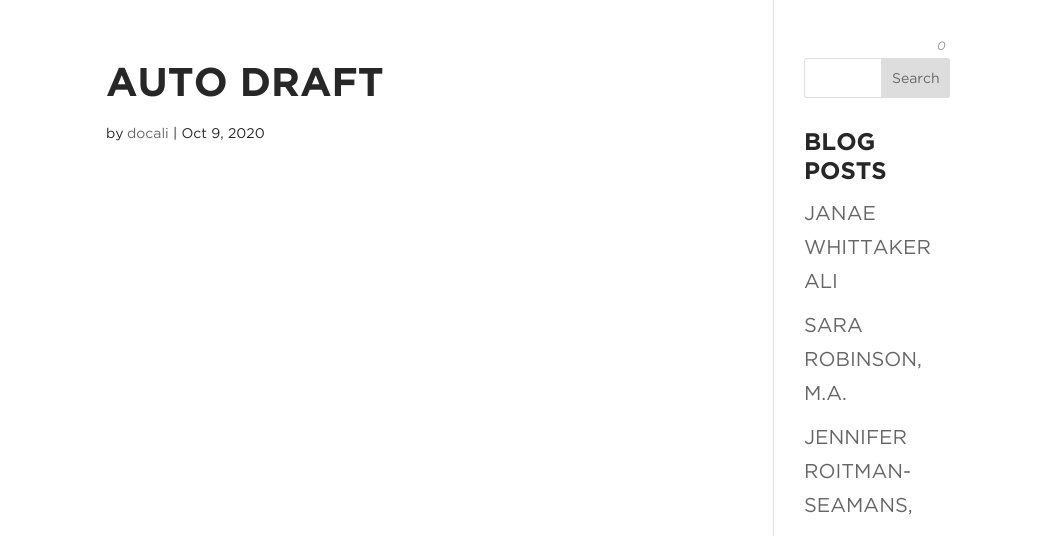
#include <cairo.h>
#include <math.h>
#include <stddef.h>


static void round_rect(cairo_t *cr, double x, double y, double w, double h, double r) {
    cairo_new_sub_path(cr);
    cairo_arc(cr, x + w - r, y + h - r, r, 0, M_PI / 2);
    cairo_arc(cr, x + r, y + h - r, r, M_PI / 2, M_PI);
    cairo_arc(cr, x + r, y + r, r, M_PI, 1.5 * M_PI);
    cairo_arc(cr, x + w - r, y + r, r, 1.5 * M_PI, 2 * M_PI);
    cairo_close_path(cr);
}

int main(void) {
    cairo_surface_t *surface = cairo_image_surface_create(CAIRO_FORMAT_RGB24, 1056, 536);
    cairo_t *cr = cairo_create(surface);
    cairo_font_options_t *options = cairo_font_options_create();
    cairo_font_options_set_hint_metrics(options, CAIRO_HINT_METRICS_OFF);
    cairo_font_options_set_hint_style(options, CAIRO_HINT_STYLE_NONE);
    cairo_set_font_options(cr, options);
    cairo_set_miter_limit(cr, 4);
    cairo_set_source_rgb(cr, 1, 1, 1);
    cairo_paint(cr);
    cairo_select_font_face(cr, "Gotham", CAIRO_FONT_SLANT_ITALIC, CAIRO_FONT_WEIGHT_NORMAL);
    cairo_set_font_size(cr, 12);
    cairo_set_source_rgb(cr, 0.576, 0.584, 0.596);
    cairo_move_to(cr, 937, 50);
    cairo_show_text(cr, "0");
    cairo_set_source_rgb(cr, 0.886, 0.886, 0.886);
    cairo_rectangle(cr, 773, 0, 1, 536);
    cairo_fill(cr);
    cairo_select_font_face(cr, "Gotham", CAIRO_FONT_SLANT_NORMAL, CAIRO_FONT_WEIGHT_BOLD);
    cairo_set_font_size(cr, 40);
    cairo_set_source_rgb(cr, 0.153, 0.153, 0.153);
    cairo_move_to(cr, 106, 96);
    cairo_show_text(cr, "AUTO DRAFT");
    cairo_select_font_face(cr, "Gotham", CAIRO_FONT_SLANT_NORMAL, CAIRO_FONT_WEIGHT_NORMAL);
    cairo_set_font_size(cr, 14);
    cairo_move_to(cr, 106, 138);
    cairo_show_text(cr, "by");
    cairo_set_source_rgb(cr, 0.4, 0.4, 0.4);
    cairo_move_to(cr, 127, 138);
    cairo_show_text(cr, "docali");
    cairo_set_source_rgb(cr, 0.153, 0.153, 0.153);
    cairo_move_to(cr, 173, 138);
    cairo_show_text(cr, "| Oct 9, 2020");
    round_rect(cr, 804.5, 58.5, 145, 39, 2.5);
    cairo_set_source_rgb(cr, 0.867, 0.867, 0.867);
    cairo_set_line_width(cr, 1);
    cairo_stroke(cr);
    cairo_new_path(cr);
    cairo_move_to(cr, 881.5, 58.5);
    cairo_line_to(cr, 947, 58.5);
    cairo_curve_to(cr, 948.5, 58.5, 949.5, 59.5, 949.5, 61);
    cairo_line_to(cr, 949.5, 95);
    cairo_curve_to(cr, 949.5, 96.5, 948.5, 97.5, 947, 97.5);
    cairo_line_to(cr, 881.5, 97.5);
    cairo_close_path(cr);
    cairo_fill_preserve(cr);
    cairo_stroke(cr);
    cairo_set_source_rgb(cr, 0.4, 0.4, 0.4);
    cairo_move_to(cr, 892, 83);
    cairo_show_text(cr, "Search");
    cairo_select_font_face(cr, "Gotham", CAIRO_FONT_SLANT_NORMAL, CAIRO_FONT_WEIGHT_BOLD);
    cairo_set_font_size(cr, 24);
    cairo_set_source_rgb(cr, 0.153, 0.153, 0.153);
    cairo_move_to(cr, 804, 150);
    cairo_show_text(cr, "BLOG");
    cairo_move_to(cr, 804, 179);
    cairo_show_text(cr, "POSTS");
    cairo_select_font_face(cr, "Gotham", CAIRO_FONT_SLANT_NORMAL, CAIRO_FONT_WEIGHT_NORMAL);
    cairo_set_font_size(cr, 20);
    cairo_set_source_rgb(cr, 0.4, 0.4, 0.4);
    cairo_move_to(cr, 804, 220);
    cairo_show_text(cr, "JANAE");
    cairo_move_to(cr, 804, 254);
    cairo_show_text(cr, "WHITTAKER");
    cairo_move_to(cr, 804, 288);
    cairo_show_text(cr, "ALI");
    cairo_move_to(cr, 804, 332);
    cairo_show_text(cr, "SARA");
    cairo_move_to(cr, 804, 366);
    cairo_show_text(cr, "ROBINSON,");
    cairo_move_to(cr, 804, 400);
    cairo_show_text(cr, "M.A.");
    cairo_move_to(cr, 804, 444);
    cairo_show_text(cr, "JENNIFER");
    cairo_move_to(cr, 804, 478);
    cairo_show_text(cr, "ROITMAN-");
    cairo_move_to(cr, 804, 512);
    cairo_show_text(cr, "SEAMANS,");
    cairo_surface_write_to_png(surface, "page.png");
    cairo_font_options_destroy(options);
    cairo_destroy(cr);
    cairo_surface_destroy(surface);
    return 0;
}
